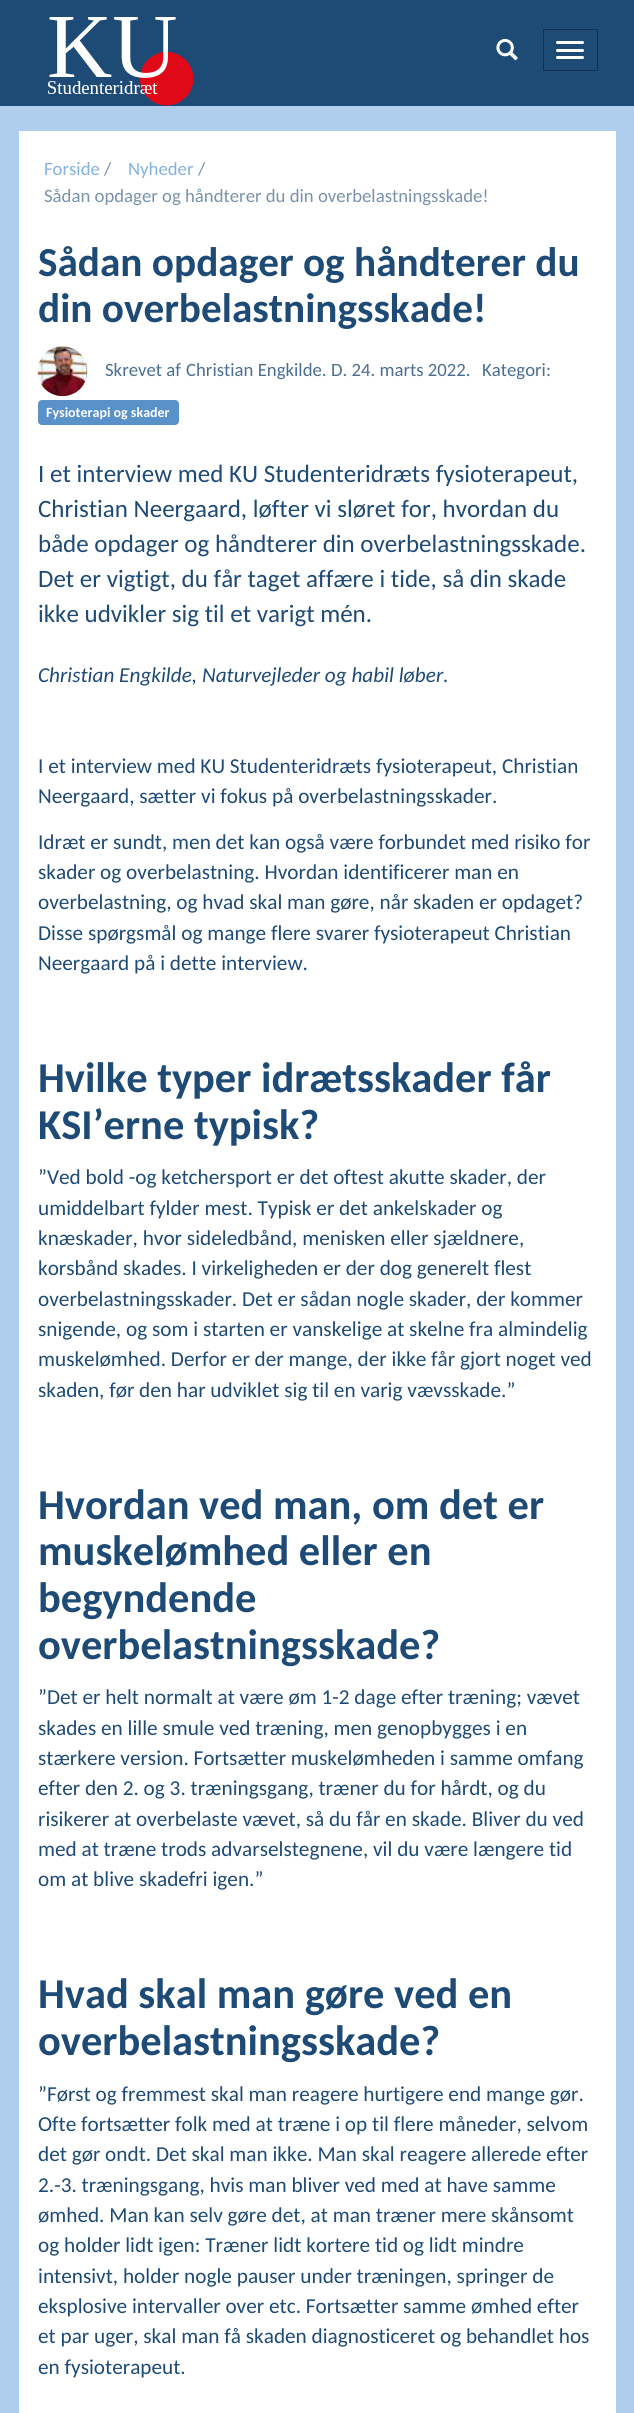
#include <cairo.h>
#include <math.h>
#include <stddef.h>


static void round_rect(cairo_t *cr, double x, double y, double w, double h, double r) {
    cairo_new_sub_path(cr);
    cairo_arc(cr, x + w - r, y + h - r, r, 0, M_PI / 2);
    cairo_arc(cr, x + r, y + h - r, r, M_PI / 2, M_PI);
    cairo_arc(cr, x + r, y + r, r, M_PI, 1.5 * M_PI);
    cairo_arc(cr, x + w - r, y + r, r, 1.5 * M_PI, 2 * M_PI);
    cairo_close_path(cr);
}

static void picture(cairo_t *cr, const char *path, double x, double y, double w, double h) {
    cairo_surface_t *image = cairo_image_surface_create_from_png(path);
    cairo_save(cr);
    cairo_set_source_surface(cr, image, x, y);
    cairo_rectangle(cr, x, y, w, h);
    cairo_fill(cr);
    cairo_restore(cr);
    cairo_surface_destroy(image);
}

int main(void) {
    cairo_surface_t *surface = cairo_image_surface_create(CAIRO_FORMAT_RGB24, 634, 2413);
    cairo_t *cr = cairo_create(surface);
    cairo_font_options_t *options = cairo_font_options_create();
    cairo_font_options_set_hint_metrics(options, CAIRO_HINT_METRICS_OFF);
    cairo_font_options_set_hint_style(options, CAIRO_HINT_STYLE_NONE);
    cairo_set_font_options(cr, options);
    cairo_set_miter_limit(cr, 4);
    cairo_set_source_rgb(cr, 0.686, 0.804, 0.922);
    cairo_paint(cr);
    cairo_set_source_rgb(cr, 0.118, 0.29, 0.463);
    cairo_rectangle(cr, 0, 0, 634, 106);
    cairo_fill(cr);
    picture(cr, "img1.png", 48, 17, 146, 89);
    picture(cr, "img2.png", 496, 38, 22, 23);
    cairo_rectangle(cr, 543.5, 29.5, 54, 41);
    cairo_set_source_rgb(cr, 0.075, 0.188, 0.306);
    cairo_set_line_width(cr, 1);
    cairo_stroke(cr);
    cairo_set_source_rgb(cr, 1, 1, 1);
    round_rect(cr, 556, 41, 28, 3, 1.5);
    cairo_fill(cr);
    round_rect(cr, 556, 49, 28, 3, 1.5);
    cairo_fill(cr);
    round_rect(cr, 556, 56, 28, 3, 1.5);
    cairo_fill(cr);
    cairo_rectangle(cr, 19, 131, 597, 2282);
    cairo_fill(cr);
    cairo_select_font_face(cr, "Carlito", CAIRO_FONT_SLANT_NORMAL, CAIRO_FONT_WEIGHT_NORMAL);
    cairo_set_font_size(cr, 18.75);
    cairo_set_source_rgb(cr, 0.518, 0.694, 0.871);
    cairo_move_to(cr, 44, 175);
    cairo_show_text(cr, "Forside");
    cairo_set_source_rgb(cr, 0.471, 0.573, 0.678);
    cairo_move_to(cr, 104, 175);
    cairo_show_text(cr, "/");
    cairo_set_source_rgb(cr, 0.518, 0.694, 0.871);
    cairo_move_to(cr, 128, 175);
    cairo_show_text(cr, "Nyheder");
    cairo_set_source_rgb(cr, 0.471, 0.573, 0.678);
    cairo_move_to(cr, 198, 175);
    cairo_show_text(cr, "/");
    cairo_move_to(cr, 44, 202);
    cairo_show_text(cr, "Sådan opdager og håndterer du din overbelastningsskade!");
    cairo_select_font_face(cr, "Carlito", CAIRO_FONT_SLANT_NORMAL, CAIRO_FONT_WEIGHT_BOLD);
    cairo_set_font_size(cr, 41.25);
    cairo_set_source_rgb(cr, 0.118, 0.29, 0.463);
    cairo_move_to(cr, 38, 276);
    cairo_show_text(cr, "Sådan opdager og håndterer du");
    cairo_move_to(cr, 38, 322);
    cairo_show_text(cr, "din overbelastningsskade!");
    picture(cr, "img3.png", 37, 346, 51, 51);
    cairo_select_font_face(cr, "Carlito", CAIRO_FONT_SLANT_NORMAL, CAIRO_FONT_WEIGHT_NORMAL);
    cairo_set_font_size(cr, 18.75);
    cairo_set_source_rgb(cr, 0.294, 0.431, 0.569);
    cairo_move_to(cr, 105, 376);
    cairo_show_text(cr, "Skrevet af");
    cairo_move_to(cr, 186, 376);
    cairo_show_text(cr, "Christian Engkilde.");
    cairo_move_to(cr, 331, 376);
    cairo_show_text(cr, "D. 24. marts 2022.");
    cairo_move_to(cr, 482, 376);
    cairo_show_text(cr, "Kategori:");
    cairo_set_source_rgb(cr, 0.349, 0.569, 0.788);
    round_rect(cr, 38, 400, 141, 25, 4);
    cairo_fill(cr);
    cairo_select_font_face(cr, "Carlito", CAIRO_FONT_SLANT_NORMAL, CAIRO_FONT_WEIGHT_BOLD);
    cairo_set_font_size(cr, 14);
    cairo_set_source_rgb(cr, 1, 1, 1);
    cairo_move_to(cr, 46, 417);
    cairo_show_text(cr, "Fysioterapi og skader");
    cairo_select_font_face(cr, "Carlito", CAIRO_FONT_SLANT_NORMAL, CAIRO_FONT_WEIGHT_NORMAL);
    cairo_set_font_size(cr, 25);
    cairo_set_source_rgb(cr, 0.118, 0.29, 0.463);
    cairo_move_to(cr, 38, 482);
    cairo_show_text(cr, "I et interview med KU Studenteridræts fysioterapeut,");
    cairo_move_to(cr, 38, 517);
    cairo_show_text(cr, "Christian Neergaard, løfter vi sløret for, hvordan du");
    cairo_move_to(cr, 38, 552);
    cairo_show_text(cr, "både opdager og håndterer din overbelastningsskade.");
    cairo_move_to(cr, 38, 587);
    cairo_show_text(cr, "Det er vigtigt, du får taget affære i tide, så din skade");
    cairo_move_to(cr, 38, 622);
    cairo_show_text(cr, "ikke udvikler sig til et varigt mén.");
    cairo_select_font_face(cr, "Carlito", CAIRO_FONT_SLANT_ITALIC, CAIRO_FONT_WEIGHT_NORMAL);
    cairo_set_font_size(cr, 21.25);
    cairo_move_to(cr, 38, 682);
    cairo_show_text(cr, "Christian Engkilde, Naturvejleder og habil løber.");
    cairo_select_font_face(cr, "Carlito", CAIRO_FONT_SLANT_NORMAL, CAIRO_FONT_WEIGHT_NORMAL);
    cairo_move_to(cr, 38, 773);
    cairo_show_text(cr, "I et interview med KU Studenteridræts fysioterapeut, Christian");
    cairo_move_to(cr, 38, 803);
    cairo_show_text(cr, "Neergaard, sætter vi fokus på overbelastningsskader.");
    cairo_move_to(cr, 38, 849);
    cairo_show_text(cr, "Idræt er sundt, men det kan også være forbundet med risiko for");
    cairo_move_to(cr, 38, 879);
    cairo_show_text(cr, "skader og overbelastning. Hvordan identificerer man en");
    cairo_move_to(cr, 38, 909);
    cairo_show_text(cr, "overbelastning, og hvad skal man gøre, når skaden er opdaget?");
    cairo_move_to(cr, 38, 940);
    cairo_show_text(cr, "Disse spørgsmål og mange flere svarer fysioterapeut Christian");
    cairo_move_to(cr, 38, 970);
    cairo_show_text(cr, "Neergaard på i dette interview.");
    cairo_select_font_face(cr, "Carlito", CAIRO_FONT_SLANT_NORMAL, CAIRO_FONT_WEIGHT_BOLD);
    cairo_set_font_size(cr, 42.5);
    cairo_move_to(cr, 38, 1092);
    cairo_show_text(cr, "Hvilke typer idrætsskader får");
    cairo_move_to(cr, 38, 1139);
    cairo_show_text(cr, "KSI’erne typisk?");
    cairo_select_font_face(cr, "Carlito", CAIRO_FONT_SLANT_NORMAL, CAIRO_FONT_WEIGHT_NORMAL);
    cairo_set_font_size(cr, 21.25);
    cairo_move_to(cr, 38, 1184);
    cairo_show_text(cr, "”Ved bold -og ketchersport er det oftest akutte skader, der");
    cairo_move_to(cr, 38, 1215);
    cairo_show_text(cr, "umiddelbart fylder mest. Typisk er det ankelskader og");
    cairo_move_to(cr, 38, 1245);
    cairo_show_text(cr, "knæskader, hvor sideledbånd, menisken eller sjældnere,");
    cairo_move_to(cr, 38, 1275);
    cairo_show_text(cr, "korsbånd skades. I virkeligheden er der dog generelt flest");
    cairo_move_to(cr, 38, 1306);
    cairo_show_text(cr, "overbelastningsskader. Det er sådan nogle skader, der kommer");
    cairo_move_to(cr, 38, 1336);
    cairo_show_text(cr, "snigende, og som i starten er vanskelige at skelne fra almindelig");
    cairo_move_to(cr, 38, 1366);
    cairo_show_text(cr, "muskelømhed. Derfor er der mange, der ikke får gjort noget ved");
    cairo_move_to(cr, 38, 1397);
    cairo_show_text(cr, "skaden, før den har udviklet sig til en varig vævsskade.”");
    cairo_select_font_face(cr, "Carlito", CAIRO_FONT_SLANT_NORMAL, CAIRO_FONT_WEIGHT_BOLD);
    cairo_set_font_size(cr, 42.5);
    cairo_move_to(cr, 38, 1519);
    cairo_show_text(cr, "Hvordan ved man, om det er");
    cairo_move_to(cr, 38, 1565);
    cairo_show_text(cr, "muskelømhed eller en");
    cairo_move_to(cr, 38, 1612);
    cairo_show_text(cr, "begyndende");
    cairo_move_to(cr, 38, 1659);
    cairo_show_text(cr, "overbelastningsskade?");
    cairo_select_font_face(cr, "Carlito", CAIRO_FONT_SLANT_NORMAL, CAIRO_FONT_WEIGHT_NORMAL);
    cairo_set_font_size(cr, 21.25);
    cairo_move_to(cr, 38, 1704);
    cairo_show_text(cr, "”Det er helt normalt at være øm 1-2 dage efter træning; vævet");
    cairo_move_to(cr, 38, 1735);
    cairo_show_text(cr, "skades en lille smule ved træning, men genopbygges i en");
    cairo_move_to(cr, 38, 1765);
    cairo_show_text(cr, "stærkere version. Fortsætter muskelømheden i samme omfang");
    cairo_move_to(cr, 38, 1795);
    cairo_show_text(cr, "efter den 2. og 3. træningsgang, træner du for hårdt, og du");
    cairo_move_to(cr, 38, 1826);
    cairo_show_text(cr, "risikerer at overbelaste vævet, så du får en skade. Bliver du ved");
    cairo_move_to(cr, 38, 1856);
    cairo_show_text(cr, "med at træne trods advarselstegnene, vil du være længere tid");
    cairo_move_to(cr, 38, 1886);
    cairo_show_text(cr, "om at blive skadefri igen.”");
    cairo_select_font_face(cr, "Carlito", CAIRO_FONT_SLANT_NORMAL, CAIRO_FONT_WEIGHT_BOLD);
    cairo_set_font_size(cr, 42.5);
    cairo_move_to(cr, 38, 2008);
    cairo_show_text(cr, "Hvad skal man gøre ved en");
    cairo_move_to(cr, 38, 2055);
    cairo_show_text(cr, "overbelastningsskade?");
    cairo_select_font_face(cr, "Carlito", CAIRO_FONT_SLANT_NORMAL, CAIRO_FONT_WEIGHT_NORMAL);
    cairo_set_font_size(cr, 21.25);
    cairo_move_to(cr, 38, 2101);
    cairo_show_text(cr, "”Først og fremmest skal man reagere hurtigere end mange gør.");
    cairo_move_to(cr, 38, 2131);
    cairo_show_text(cr, "Ofte fortsætter folk med at træne i op til flere måneder, selvom");
    cairo_move_to(cr, 38, 2161);
    cairo_show_text(cr, "det gør ondt. Det skal man ikke. Man skal reagere allerede efter");
    cairo_move_to(cr, 38, 2192);
    cairo_show_text(cr, "2.-3. træningsgang, hvis man bliver ved med at have samme");
    cairo_move_to(cr, 38, 2222);
    cairo_show_text(cr, "ømhed. Man kan selv gøre det, at man træner mere skånsomt");
    cairo_move_to(cr, 38, 2252);
    cairo_show_text(cr, "og holder lidt igen: Træner lidt kortere tid og lidt mindre");
    cairo_move_to(cr, 38, 2283);
    cairo_show_text(cr, "intensivt, holder nogle pauser under træningen, springer de");
    cairo_move_to(cr, 38, 2313);
    cairo_show_text(cr, "eksplosive intervaller over etc. Fortsætter samme ømhed efter");
    cairo_move_to(cr, 38, 2343);
    cairo_show_text(cr, "et par uger, skal man få skaden diagnosticeret og behandlet hos");
    cairo_move_to(cr, 38, 2374);
    cairo_show_text(cr, "en fysioterapeut.");
    cairo_surface_write_to_png(surface, "page.png");
    cairo_font_options_destroy(options);
    cairo_destroy(cr);
    cairo_surface_destroy(surface);
    return 0;
}
